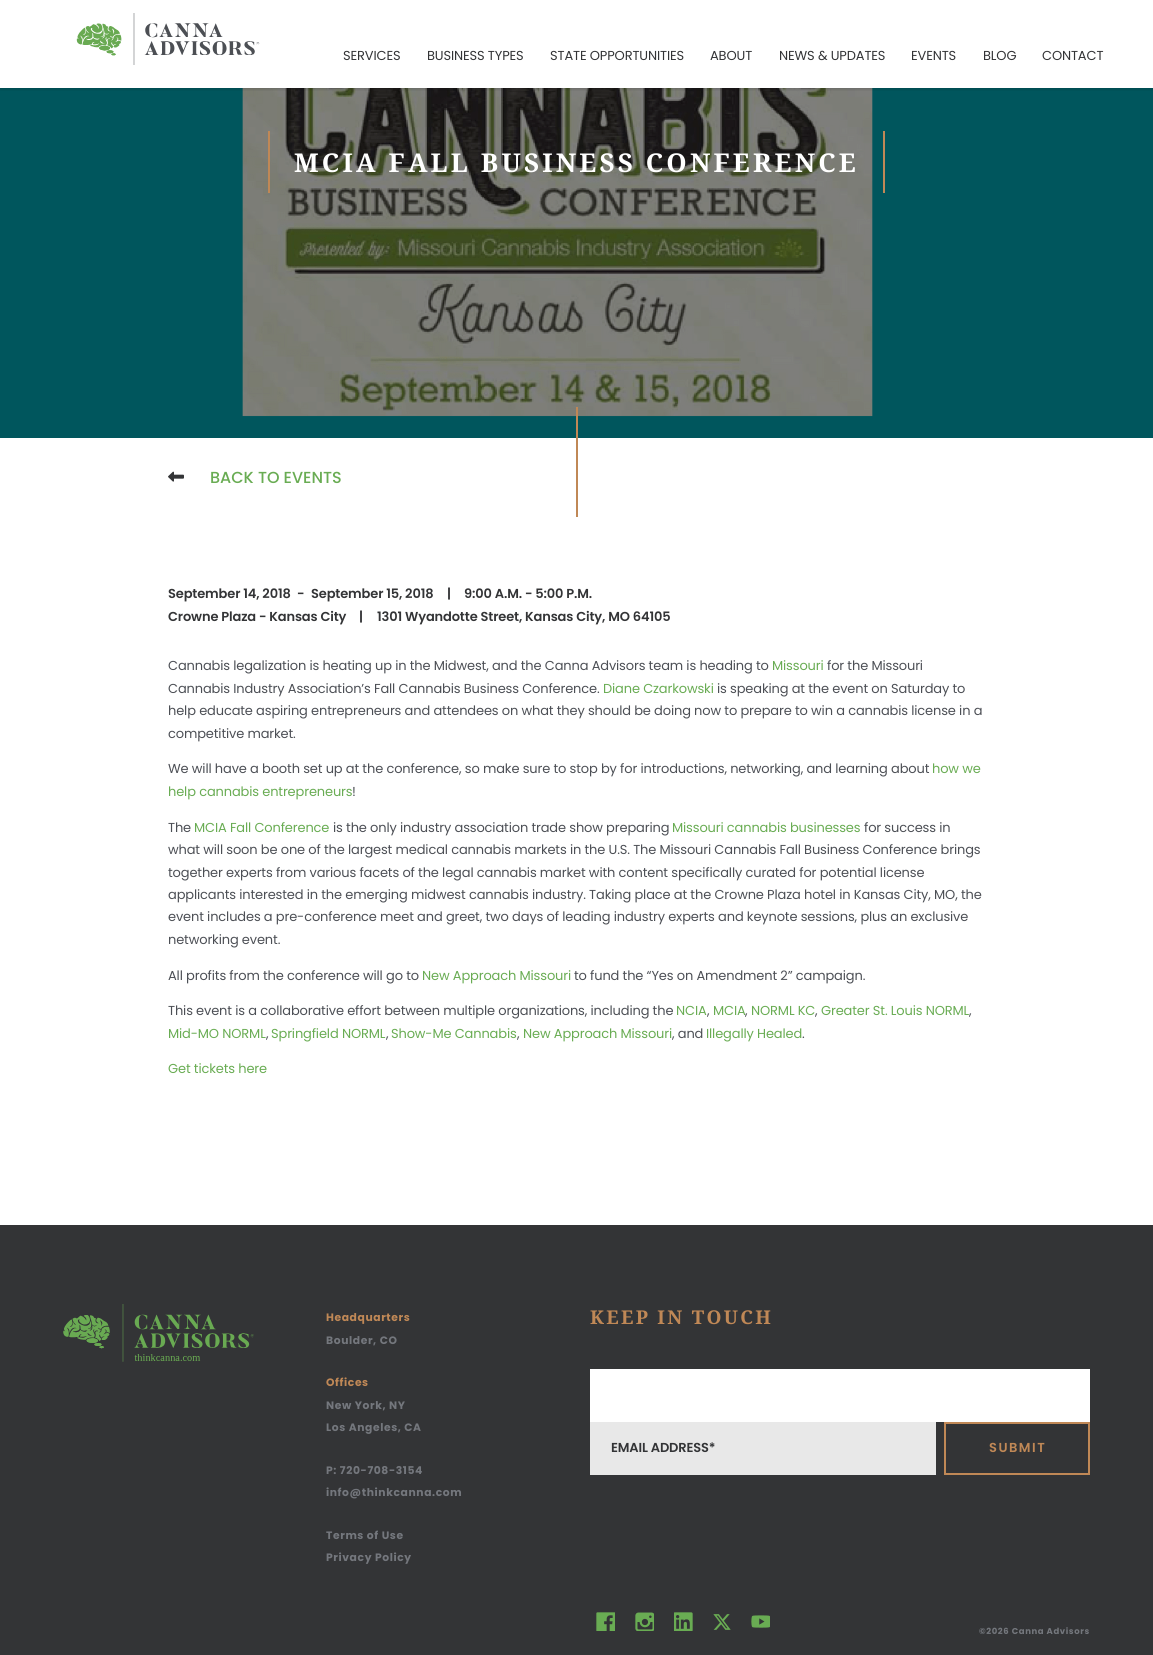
#include <cairo.h>
#include <math.h>
#include <stddef.h>


static void spaced_text(cairo_t *cr, double x, double y, const char *s, double letter, double word) {
    cairo_move_to(cr, x, y);
    while (*s) {
        char ch[5] = {0};
        int n = 0;
        do ch[n++] = *s++; while ((*s & 0xC0) == 0x80);
        cairo_show_text(cr, ch);
        cairo_rel_move_to(cr, letter + word * (*ch == ' '), 0);
    }
}

static void round_rect(cairo_t *cr, double x, double y, double w, double h, double r) {
    cairo_new_sub_path(cr);
    cairo_arc(cr, x + w - r, y + h - r, r, 0, M_PI / 2);
    cairo_arc(cr, x + r, y + h - r, r, M_PI / 2, M_PI);
    cairo_arc(cr, x + r, y + r, r, M_PI, 1.5 * M_PI);
    cairo_arc(cr, x + w - r, y + r, r, 1.5 * M_PI, 2 * M_PI);
    cairo_close_path(cr);
}

static void shadow(cairo_t *cr, double x, double y, double w, double h, double r, double blur, double alpha) {
    cairo_push_group_with_content(cr, CAIRO_CONTENT_ALPHA);
    cairo_set_operator(cr, CAIRO_OPERATOR_SOURCE);
    for (int i = 15; i >= -15 && fmin(w, h) + blur * i / 3 > 0; i -= 2) {
        double e = blur * i / 6;
        cairo_set_source_rgba(cr, 0, 0, 0, alpha * erfc((i - 1) / 8.5) / 2);
        round_rect(cr, x - e, y - e, w + 2 * e, h + 2 * e, fmax(0, fmin(r + e + blur * .6, fmin(w, h) / 2 + e)));
        cairo_fill(cr);
    }
    cairo_pattern_t *soft = cairo_pop_group(cr);
    cairo_mask(cr, soft);
    cairo_pattern_destroy(soft);
}

static void picture(cairo_t *cr, const char *path, double x, double y, double w, double h) {
    cairo_surface_t *image = cairo_image_surface_create_from_png(path);
    cairo_save(cr);
    cairo_set_source_surface(cr, image, x, y);
    cairo_rectangle(cr, x, y, w, h);
    cairo_fill(cr);
    cairo_restore(cr);
    cairo_surface_destroy(image);
}

int main(void) {
    cairo_surface_t *surface = cairo_image_surface_create(CAIRO_FORMAT_RGB24, 1153, 1655);
    cairo_t *cr = cairo_create(surface);
    cairo_font_options_t *options = cairo_font_options_create();
    cairo_font_options_set_hint_metrics(options, CAIRO_HINT_METRICS_OFF);
    cairo_font_options_set_hint_style(options, CAIRO_HINT_STYLE_NONE);
    cairo_set_font_options(cr, options);
    cairo_set_miter_limit(cr, 4);
    cairo_set_source_rgb(cr, 1, 1, 1);
    cairo_paint(cr);
    picture(cr, "img2.png", 0, 88, 1153, 350);
    cairo_save(cr);
    cairo_rectangle(cr, 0, 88, 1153, 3);
    cairo_clip(cr);
    cairo_set_source_rgb(cr, 0, 0, 0);
    shadow(cr, 0, 1, 1153, 88, 0, 2, 0.19);
    cairo_restore(cr);
    picture(cr, "img1.png", 76, 13, 184, 52);
    cairo_select_font_face(cr, "Poppins", CAIRO_FONT_SLANT_NORMAL, CAIRO_FONT_WEIGHT_NORMAL);
    cairo_set_font_size(cr, 13);
    cairo_set_source_rgb(cr, 0.2, 0.204, 0.212);
    spaced_text(cr, 343, 60, "SERVICES", -0.14, 0);
    spaced_text(cr, 427, 60, "BUSINESS TYPES", -0.14, 0);
    spaced_text(cr, 550, 60, "STATE OPPORTUNITIES", -0.14, 0);
    spaced_text(cr, 710, 60, "ABOUT", -0.14, 0);
    spaced_text(cr, 779, 60, "NEWS & UPDATES", -0.14, 0);
    spaced_text(cr, 911, 60, "EVENTS", -0.14, 0);
    spaced_text(cr, 983, 60, "BLOG", -0.14, 0);
    spaced_text(cr, 1042, 60, "CONTACT", -0.14, 0);
    cairo_set_source_rgb(cr, 0.753, 0.533, 0.337);
    cairo_rectangle(cr, 268, 131, 2, 62);
    cairo_fill(cr);
    cairo_select_font_face(cr, "Noto Serif", CAIRO_FONT_SLANT_NORMAL, CAIRO_FONT_WEIGHT_BOLD);
    cairo_set_font_size(cr, 25.9);
    cairo_set_source_rgb(cr, 1, 1, 1);
    spaced_text(cr, 294, 172, "MCIA FALL BUSINESS CONFERENCE", 3.2, 0);
    cairo_set_source_rgb(cr, 0.753, 0.533, 0.337);
    cairo_rectangle(cr, 883, 131, 2, 62);
    cairo_fill(cr);
    picture(cr, "img3.png", 168, 471, 16, 11);
    cairo_select_font_face(cr, "Poppins Medium", CAIRO_FONT_SLANT_NORMAL, CAIRO_FONT_WEIGHT_NORMAL);
    cairo_set_font_size(cr, 16);
    cairo_set_source_rgb(cr, 0.412, 0.675, 0.325);
    cairo_move_to(cr, 210, 483);
    cairo_show_text(cr, "BACK TO EVENTS");
    cairo_set_source_rgb(cr, 0.753, 0.533, 0.337);
    cairo_rectangle(cr, 576, 407, 2, 110);
    cairo_fill(cr);
    cairo_select_font_face(cr, "Poppins SemiBold", CAIRO_FONT_SLANT_NORMAL, CAIRO_FONT_WEIGHT_NORMAL);
    cairo_set_font_size(cr, 13);
    cairo_set_source_rgb(cr, 0.2, 0.204, 0.212);
    spaced_text(cr, 168, 598, "September 14, 2018", -0.14, 0);
    spaced_text(cr, 297, 598, "-", -0.14, 0);
    spaced_text(cr, 311, 598, "September 15, 2018", -0.14, 0);
    spaced_text(cr, 447, 598, "|", -0.14, 0);
    spaced_text(cr, 464, 598, "9:00 A.M. - 5:00 P.M.", -0.14, 0);
    spaced_text(cr, 168, 621, "Crowne Plaza - Kansas City", -0.14, 0);
    spaced_text(cr, 359, 621, "|", -0.14, 0);
    spaced_text(cr, 377, 621, "1301 Wyandotte Street, Kansas City, MO 64105", -0.14, 0);
    cairo_select_font_face(cr, "Poppins", CAIRO_FONT_SLANT_NORMAL, CAIRO_FONT_WEIGHT_NORMAL);
    cairo_set_source_rgb(cr, 0.298, 0.31, 0.333);
    spaced_text(cr, 168, 670, "Cannabis legalization is heating up in the Midwest, and the Canna Advisors team is heading to", -0.14, 0);
    cairo_set_source_rgb(cr, 0.412, 0.675, 0.325);
    spaced_text(cr, 772, 670, "Missouri", -0.14, 0);
    cairo_set_source_rgb(cr, 0.298, 0.31, 0.333);
    spaced_text(cr, 827, 670, "for the Missouri", -0.14, 0);
    spaced_text(cr, 168, 693, "Cannabis Industry Association’s Fall Cannabis Business Conference.", -0.14, 0);
    cairo_set_source_rgb(cr, 0.412, 0.675, 0.325);
    spaced_text(cr, 603, 693, "Diane Czarkowski", -0.14, 0);
    cairo_set_source_rgb(cr, 0.298, 0.31, 0.333);
    spaced_text(cr, 717, 693, "is speaking at the event on Saturday to", -0.14, 0);
    spaced_text(cr, 168, 715, "help educate aspiring entrepreneurs and attendees on what they should be doing now to prepare to win a cannabis license in a", -0.14, 0);
    spaced_text(cr, 168, 738, "competitive market.", -0.14, 0);
    spaced_text(cr, 168, 773, "We will have a booth set up at the conference, so make sure to stop by for introductions, networking, and learning about", -0.14, 0);
    cairo_set_source_rgb(cr, 0.412, 0.675, 0.325);
    spaced_text(cr, 932, 773, "how we", -0.14, 0);
    spaced_text(cr, 168, 796, "help cannabis entrepreneurs", -0.14, 0);
    cairo_set_source_rgb(cr, 0.298, 0.31, 0.333);
    spaced_text(cr, 352, 796, "!", -0.14, 0);
    spaced_text(cr, 168, 832, "The", -0.14, 0);
    cairo_set_source_rgb(cr, 0.412, 0.675, 0.325);
    spaced_text(cr, 194, 832, "MCIA Fall Conference", -0.14, 0);
    cairo_set_source_rgb(cr, 0.298, 0.31, 0.333);
    spaced_text(cr, 333, 832, "is the only industry association trade show preparing", -0.14, 0);
    cairo_set_source_rgb(cr, 0.412, 0.675, 0.325);
    spaced_text(cr, 672, 832, "Missouri cannabis businesses", -0.14, 0);
    cairo_set_source_rgb(cr, 0.298, 0.31, 0.333);
    spaced_text(cr, 864, 832, "for success in", -0.14, 0);
    spaced_text(cr, 168, 854, "what will soon be one of the largest medical cannabis markets in the U.S. The Missouri Cannabis Fall Business Conference brings", -0.14, 0);
    spaced_text(cr, 168, 877, "together experts from various facets of the legal cannabis market with content specifically curated for potential license", -0.14, 0);
    spaced_text(cr, 168, 899, "applicants interested in the emerging midwest cannabis industry. Taking place at the Crowne Plaza hotel in Kansas City, MO, the", -0.14, 0);
    spaced_text(cr, 168, 921, "event includes a pre-conference meet and greet, two days of leading industry experts and keynote sessions, plus an exclusive", -0.14, 0);
    spaced_text(cr, 168, 944, "networking event.", -0.14, 0);
    spaced_text(cr, 168, 980, "All profits from the conference will go to", -0.14, 0);
    cairo_set_source_rgb(cr, 0.412, 0.675, 0.325);
    spaced_text(cr, 422, 980, "New Approach Missouri", -0.14, 0);
    cairo_set_source_rgb(cr, 0.298, 0.31, 0.333);
    spaced_text(cr, 574, 980, "to fund the “Yes on Amendment 2” campaign.", -0.14, 0);
    spaced_text(cr, 168, 1015, "This event is a collaborative effort between multiple organizations, including the", -0.14, 0);
    cairo_set_source_rgb(cr, 0.412, 0.675, 0.325);
    spaced_text(cr, 676, 1015, "NCIA", -0.14, 0);
    cairo_set_source_rgb(cr, 0.298, 0.31, 0.333);
    spaced_text(cr, 707, 1015, ",", -0.14, 0);
    cairo_set_source_rgb(cr, 0.412, 0.675, 0.325);
    spaced_text(cr, 713, 1015, "MCIA", -0.14, 0);
    cairo_set_source_rgb(cr, 0.298, 0.31, 0.333);
    spaced_text(cr, 745, 1015, ",", -0.14, 0);
    cairo_set_source_rgb(cr, 0.412, 0.675, 0.325);
    spaced_text(cr, 751, 1015, "NORML KC", -0.14, 0);
    cairo_set_source_rgb(cr, 0.298, 0.31, 0.333);
    spaced_text(cr, 815, 1015, ",", -0.14, 0);
    cairo_set_source_rgb(cr, 0.412, 0.675, 0.325);
    spaced_text(cr, 821, 1015, "Greater St. Louis NORML", -0.14, 0);
    cairo_set_source_rgb(cr, 0.298, 0.31, 0.333);
    spaced_text(cr, 969, 1015, ",", -0.14, 0);
    cairo_set_source_rgb(cr, 0.412, 0.675, 0.325);
    spaced_text(cr, 168, 1038, "Mid-MO NORML", -0.14, 0);
    cairo_set_source_rgb(cr, 0.298, 0.31, 0.333);
    spaced_text(cr, 266, 1038, ",", -0.14, 0);
    cairo_set_source_rgb(cr, 0.412, 0.675, 0.325);
    spaced_text(cr, 271, 1038, "Springfield NORML", -0.14, 0);
    cairo_set_source_rgb(cr, 0.298, 0.31, 0.333);
    spaced_text(cr, 386, 1038, ",", -0.14, 0);
    cairo_set_source_rgb(cr, 0.412, 0.675, 0.325);
    spaced_text(cr, 391, 1038, "Show-Me Cannabis", -0.14, 0);
    cairo_set_source_rgb(cr, 0.298, 0.31, 0.333);
    spaced_text(cr, 517, 1038, ",", -0.14, 0);
    cairo_set_source_rgb(cr, 0.412, 0.675, 0.325);
    spaced_text(cr, 523, 1038, "New Approach Missouri", -0.14, 0);
    cairo_set_source_rgb(cr, 0.298, 0.31, 0.333);
    spaced_text(cr, 672, 1038, ", and", -0.14, 0);
    cairo_set_source_rgb(cr, 0.412, 0.675, 0.325);
    spaced_text(cr, 706, 1038, "Illegally Healed", -0.14, 0);
    cairo_set_source_rgb(cr, 0.298, 0.31, 0.333);
    spaced_text(cr, 802, 1038, ".", -0.14, 0);
    cairo_set_source_rgb(cr, 0.412, 0.675, 0.325);
    spaced_text(cr, 168, 1073, "Get tickets here", -0.14, 0);
    cairo_set_source_rgb(cr, 0.2, 0.204, 0.212);
    cairo_rectangle(cr, 0, 1225, 1153, 430);
    cairo_fill(cr);
    picture(cr, "img4.png", 63, 1304, 191, 58);
    cairo_select_font_face(cr, "Poppins", CAIRO_FONT_SLANT_NORMAL, CAIRO_FONT_WEIGHT_BOLD);
    cairo_set_font_size(cr, 10.75);
    cairo_set_source_rgb(cr, 0.753, 0.533, 0.337);
    spaced_text(cr, 326, 1321, "Headquarters", 0.6, 0);
    cairo_set_source_rgb(cr, 0.455, 0.467, 0.49);
    spaced_text(cr, 326, 1344, "Boulder, CO", 0.6, 0);
    cairo_set_source_rgb(cr, 0.753, 0.533, 0.337);
    spaced_text(cr, 326, 1386, "Offices", 0.6, 0);
    cairo_set_source_rgb(cr, 0.455, 0.467, 0.49);
    spaced_text(cr, 326, 1409, "New York, NY", 0.6, 0);
    spaced_text(cr, 326, 1431, "Los Angeles, CA", 0.6, 0);
    spaced_text(cr, 326, 1474, "P: 720-708-3154", 0.6, 0);
    spaced_text(cr, 326, 1496, "info@thinkcanna.com", 0.6, 0);
    spaced_text(cr, 326, 1539, "Terms of Use", 0.6, 0);
    spaced_text(cr, 326, 1561, "Privacy Policy", 0.6, 0);
    cairo_select_font_face(cr, "Noto Serif", CAIRO_FONT_SLANT_NORMAL, CAIRO_FONT_WEIGHT_BOLD);
    cairo_set_font_size(cr, 19);
    cairo_set_source_rgb(cr, 0.753, 0.533, 0.337);
    spaced_text(cr, 590, 1324, "KEEP IN TOUCH", 2.3, 0);
    cairo_set_source_rgb(cr, 1, 1, 1);
    cairo_rectangle(cr, 590, 1369, 500, 53);
    cairo_fill(cr);
    cairo_set_source_rgb(cr, 0.91, 0.91, 0.91);
    cairo_rectangle(cr, 590, 1422, 346, 53);
    cairo_fill(cr);
    cairo_select_font_face(cr, "Poppins SemiBold", CAIRO_FONT_SLANT_NORMAL, CAIRO_FONT_WEIGHT_NORMAL);
    cairo_set_font_size(cr, 13);
    cairo_set_source_rgb(cr, 0.2, 0.204, 0.212);
    spaced_text(cr, 611, 1452, "EMAIL ADDRESS*", -0.14, 0);
    cairo_rectangle(cr, 945, 1423, 144, 51);
    cairo_set_source_rgb(cr, 0.753, 0.533, 0.337);
    cairo_stroke(cr);
    spaced_text(cr, 989, 1452, "SUBMIT", 1.5, 0);
    picture(cr, "img5.png", 596, 1612, 19, 19);
    picture(cr, "img6.png", 635, 1612, 19, 19);
    picture(cr, "img7.png", 674, 1612, 19, 19);
    picture(cr, "img8.png", 713, 1614, 18, 16);
    picture(cr, "img9.png", 751, 1615, 19, 13);
    cairo_select_font_face(cr, "Poppins", CAIRO_FONT_SLANT_NORMAL, CAIRO_FONT_WEIGHT_BOLD);
    cairo_set_font_size(cr, 8.5);
    cairo_set_source_rgb(cr, 0.455, 0.467, 0.49);
    spaced_text(cr, 979, 1634, "©2026 Canna Advisors", 0.6, 0);
    cairo_surface_write_to_png(surface, "page.png");
    cairo_font_options_destroy(options);
    cairo_destroy(cr);
    cairo_surface_destroy(surface);
    return 0;
}
